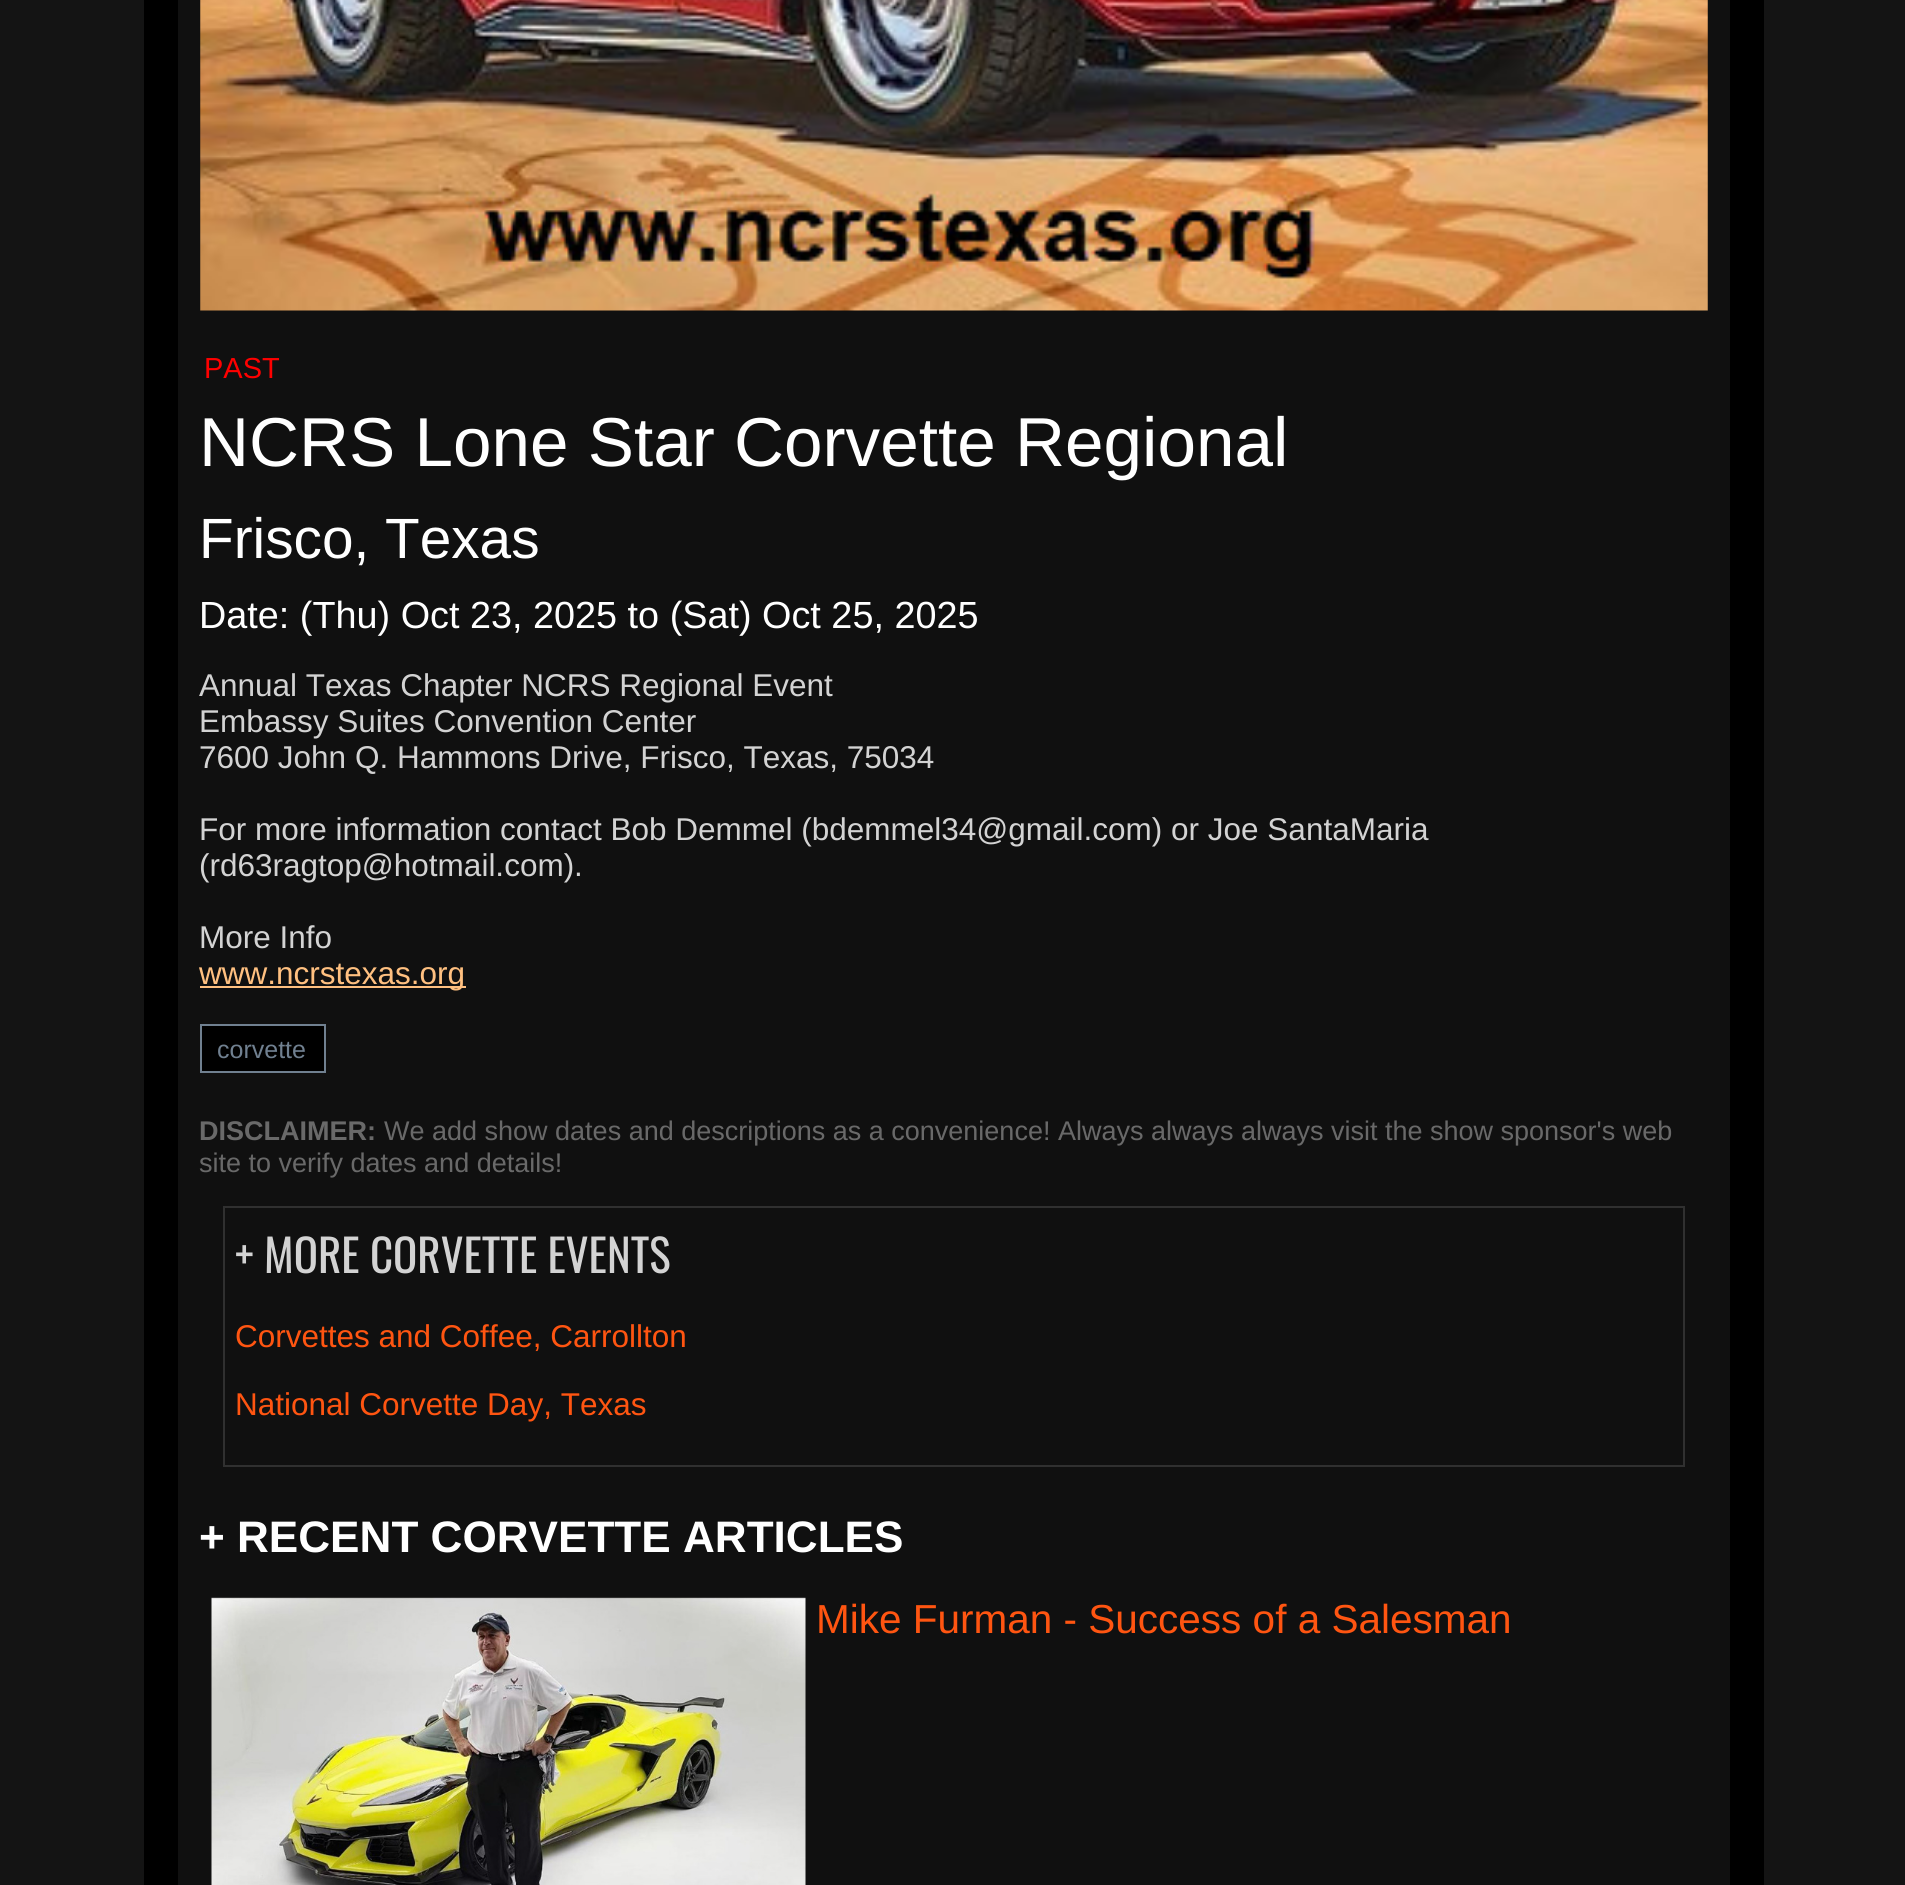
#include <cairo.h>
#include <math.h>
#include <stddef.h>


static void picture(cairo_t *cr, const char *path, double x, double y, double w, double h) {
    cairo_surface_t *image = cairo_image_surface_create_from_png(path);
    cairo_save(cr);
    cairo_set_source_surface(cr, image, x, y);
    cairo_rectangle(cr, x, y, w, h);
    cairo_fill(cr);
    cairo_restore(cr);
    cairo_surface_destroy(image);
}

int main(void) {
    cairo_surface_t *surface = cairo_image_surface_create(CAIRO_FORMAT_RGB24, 1905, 1885);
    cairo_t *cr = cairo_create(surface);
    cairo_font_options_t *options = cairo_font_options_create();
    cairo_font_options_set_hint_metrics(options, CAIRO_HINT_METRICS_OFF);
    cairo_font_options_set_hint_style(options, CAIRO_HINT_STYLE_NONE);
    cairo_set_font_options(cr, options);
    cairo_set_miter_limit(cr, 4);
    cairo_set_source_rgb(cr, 0.082, 0.082, 0.082);
    cairo_paint(cr);
    cairo_set_source_rgb(cr, 0, 0, 0);
    cairo_rectangle(cr, 144, 0, 1620, 1885);
    cairo_fill(cr);
    cairo_set_source_rgb(cr, 0.063, 0.063, 0.063);
    cairo_rectangle(cr, 178, 0, 1552, 1885);
    cairo_fill(cr);
    picture(cr, "img1.png", 200, 0, 1508, 311);
    cairo_select_font_face(cr, "Liberation Sans", CAIRO_FONT_SLANT_NORMAL, CAIRO_FONT_WEIGHT_NORMAL);
    cairo_set_font_size(cr, 29);
    cairo_set_source_rgb(cr, 1, 0, 0);
    cairo_move_to(cr, 204, 378);
    cairo_show_text(cr, "PAST");
    cairo_set_font_size(cr, 69.25);
    cairo_set_source_rgb(cr, 1, 1, 1);
    cairo_move_to(cr, 199, 466);
    cairo_show_text(cr, "NCRS Lone Star Corvette Regional");
    cairo_set_font_size(cr, 56.75);
    cairo_move_to(cr, 199, 558);
    cairo_show_text(cr, "Frisco, Texas");
    cairo_set_font_size(cr, 37.8);
    cairo_move_to(cr, 199, 628);
    cairo_show_text(cr, "Date: (Thu) Oct 23, 2025 to (Sat) Oct 25, 2025");
    cairo_set_font_size(cr, 31.5);
    cairo_set_source_rgb(cr, 0.827, 0.827, 0.827);
    cairo_move_to(cr, 199, 696);
    cairo_show_text(cr, "Annual Texas Chapter NCRS Regional Event");
    cairo_move_to(cr, 199, 732);
    cairo_show_text(cr, "Embassy Suites Convention Center");
    cairo_move_to(cr, 199, 768);
    cairo_show_text(cr, "7600 John Q. Hammons Drive, Frisco, Texas, 75034");
    cairo_move_to(cr, 199, 840);
    cairo_show_text(cr, "For more information contact Bob Demmel (bdemmel34@gmail.com) or Joe SantaMaria");
    cairo_move_to(cr, 199, 876);
    cairo_show_text(cr, "(rd63ragtop@hotmail.com).");
    cairo_move_to(cr, 199, 948);
    cairo_show_text(cr, "More Info");
    cairo_set_source_rgb(cr, 1, 0.753, 0.502);
    cairo_rectangle(cr, 200, 986, 266, 2);
    cairo_fill(cr);
    cairo_move_to(cr, 199, 984);
    cairo_show_text(cr, "www.ncrstexas.org");
    cairo_set_source_rgb(cr, 0, 0, 0);
    cairo_rectangle(cr, 201, 1025, 124, 47);
    cairo_fill_preserve(cr);
    cairo_set_source_rgb(cr, 0.439, 0.502, 0.565);
    cairo_stroke(cr);
    cairo_set_font_size(cr, 25);
    cairo_move_to(cr, 217, 1058);
    cairo_show_text(cr, "corvette");
    cairo_select_font_face(cr, "Liberation Sans", CAIRO_FONT_SLANT_NORMAL, CAIRO_FONT_WEIGHT_BOLD);
    cairo_set_font_size(cr, 27);
    cairo_set_source_rgb(cr, 0.412, 0.412, 0.412);
    cairo_move_to(cr, 199, 1140);
    cairo_show_text(cr, "DISCLAIMER:");
    cairo_select_font_face(cr, "Liberation Sans", CAIRO_FONT_SLANT_NORMAL, CAIRO_FONT_WEIGHT_NORMAL);
    cairo_move_to(cr, 384, 1140);
    cairo_show_text(cr, "We add show dates and descriptions as a convenience! Always always always visit the show sponsor's web");
    cairo_move_to(cr, 199, 1172);
    cairo_show_text(cr, "site to verify dates and details!");
    cairo_rectangle(cr, 224, 1207, 1460, 259);
    cairo_set_source_rgb(cr, 0.188, 0.188, 0.188);
    cairo_stroke(cr);
    cairo_select_font_face(cr, "Oswald", CAIRO_FONT_SLANT_NORMAL, CAIRO_FONT_WEIGHT_NORMAL);
    cairo_set_font_size(cr, 45);
    cairo_set_source_rgb(cr, 0.827, 0.827, 0.827);
    cairo_move_to(cr, 235, 1273);
    cairo_show_text(cr, "+ MORE CORVETTE EVENTS");
    cairo_select_font_face(cr, "Liberation Sans", CAIRO_FONT_SLANT_NORMAL, CAIRO_FONT_WEIGHT_NORMAL);
    cairo_set_font_size(cr, 31.5);
    cairo_set_source_rgb(cr, 1, 0.333, 0.067);
    cairo_move_to(cr, 235, 1347);
    cairo_show_text(cr, "Corvettes and Coffee, Carrollton");
    cairo_move_to(cr, 235, 1415);
    cairo_show_text(cr, "National Corvette Day, Texas");
    cairo_select_font_face(cr, "Liberation Sans", CAIRO_FONT_SLANT_NORMAL, CAIRO_FONT_WEIGHT_BOLD);
    cairo_set_font_size(cr, 44.1);
    cairo_set_source_rgb(cr, 1, 1, 1);
    cairo_move_to(cr, 199, 1552);
    cairo_show_text(cr, "+ RECENT CORVETTE ARTICLES");
    picture(cr, "img2.png", 211, 1597, 595, 288);
    cairo_select_font_face(cr, "Liberation Sans", CAIRO_FONT_SLANT_NORMAL, CAIRO_FONT_WEIGHT_NORMAL);
    cairo_set_font_size(cr, 40.5);
    cairo_set_source_rgb(cr, 1, 0.333, 0.067);
    cairo_move_to(cr, 816, 1633);
    cairo_show_text(cr, "Mike Furman - Success of a Salesman");
    cairo_surface_write_to_png(surface, "page.png");
    cairo_font_options_destroy(options);
    cairo_destroy(cr);
    cairo_surface_destroy(surface);
    return 0;
}
